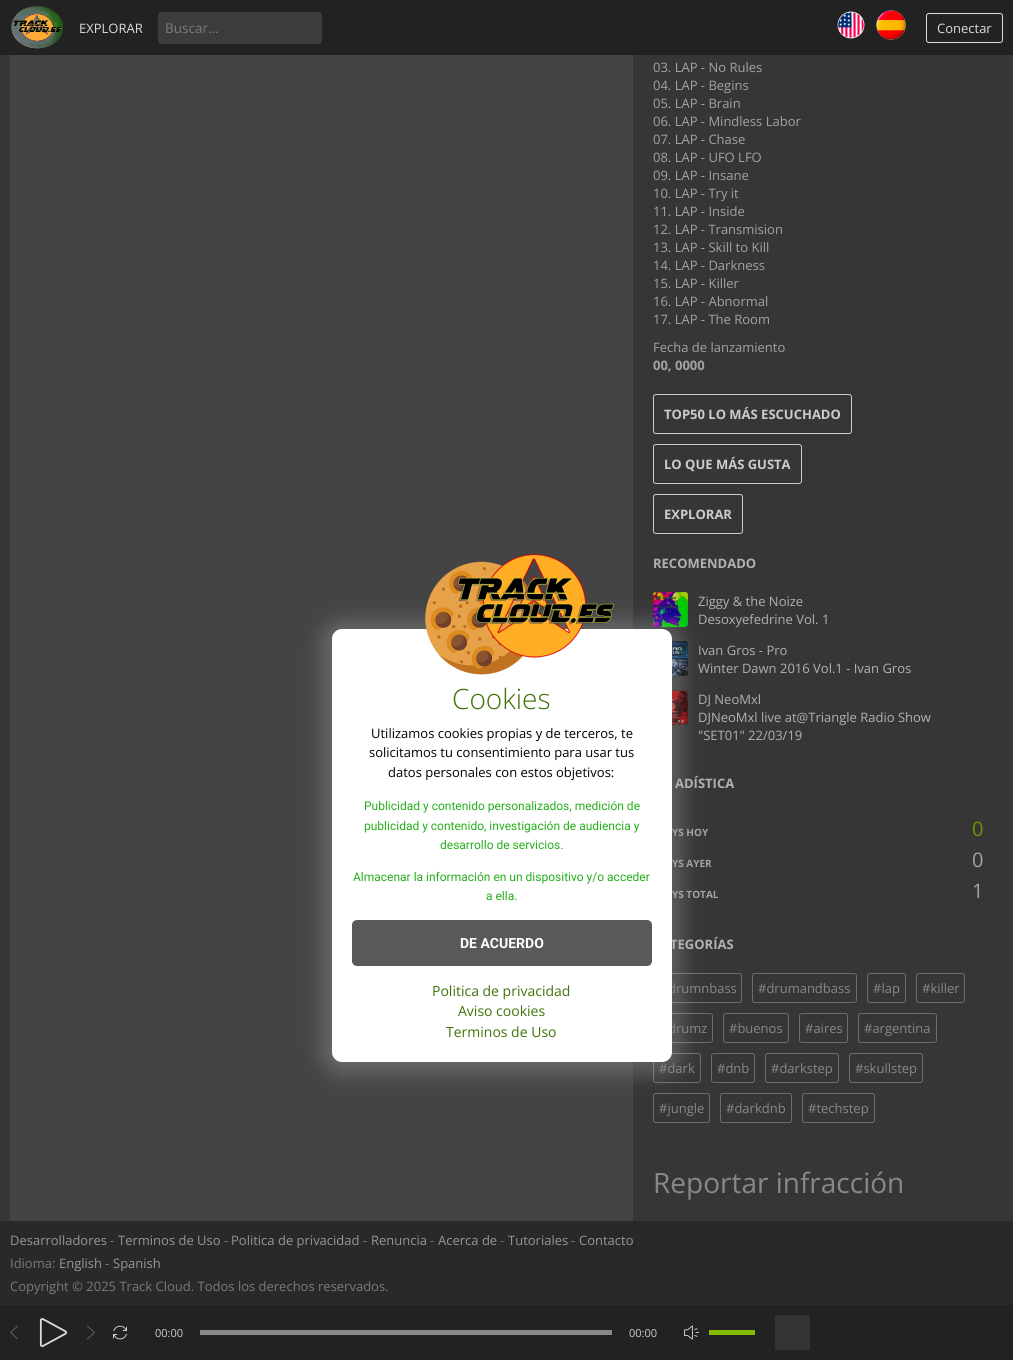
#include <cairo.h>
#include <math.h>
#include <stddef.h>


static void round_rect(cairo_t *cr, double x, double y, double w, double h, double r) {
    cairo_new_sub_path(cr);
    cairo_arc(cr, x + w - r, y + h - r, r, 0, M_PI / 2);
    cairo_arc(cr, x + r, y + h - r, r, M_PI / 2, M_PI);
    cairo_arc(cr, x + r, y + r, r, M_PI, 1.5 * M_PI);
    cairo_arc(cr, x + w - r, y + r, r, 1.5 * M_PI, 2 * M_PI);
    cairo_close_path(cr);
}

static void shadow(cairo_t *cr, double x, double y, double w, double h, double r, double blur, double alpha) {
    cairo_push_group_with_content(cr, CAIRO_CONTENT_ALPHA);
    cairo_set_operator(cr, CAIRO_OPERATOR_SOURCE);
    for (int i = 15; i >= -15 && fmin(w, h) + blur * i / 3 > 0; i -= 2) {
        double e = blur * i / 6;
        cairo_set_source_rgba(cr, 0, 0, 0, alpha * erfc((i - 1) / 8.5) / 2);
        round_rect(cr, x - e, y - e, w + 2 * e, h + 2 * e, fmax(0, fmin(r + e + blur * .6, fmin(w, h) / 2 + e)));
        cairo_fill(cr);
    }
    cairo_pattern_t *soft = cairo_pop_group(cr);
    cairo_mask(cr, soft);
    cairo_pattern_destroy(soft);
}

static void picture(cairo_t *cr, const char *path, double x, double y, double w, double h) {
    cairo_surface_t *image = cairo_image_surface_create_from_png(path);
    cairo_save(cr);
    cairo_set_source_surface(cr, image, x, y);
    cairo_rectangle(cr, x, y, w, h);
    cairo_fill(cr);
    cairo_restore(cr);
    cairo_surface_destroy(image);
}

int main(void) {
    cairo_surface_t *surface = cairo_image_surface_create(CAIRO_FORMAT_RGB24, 1013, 1360);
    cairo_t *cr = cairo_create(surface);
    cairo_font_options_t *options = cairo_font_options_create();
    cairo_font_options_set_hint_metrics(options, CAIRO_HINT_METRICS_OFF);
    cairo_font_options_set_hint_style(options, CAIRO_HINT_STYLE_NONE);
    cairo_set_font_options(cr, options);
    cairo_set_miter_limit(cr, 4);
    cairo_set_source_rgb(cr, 0.161, 0.161, 0.161);
    cairo_paint(cr);
    cairo_set_source_rgb(cr, 0.133, 0.133, 0.133);
    cairo_rectangle(cr, 0, 0, 1013, 55);
    cairo_fill(cr);
    picture(cr, "img1.png", 11, 6, 53, 43);
    cairo_select_font_face(cr, "Open Sans", CAIRO_FONT_SLANT_NORMAL, CAIRO_FONT_WEIGHT_NORMAL);
    cairo_set_font_size(cr, 13);
    cairo_set_source_rgb(cr, 0.867, 0.867, 0.867);
    cairo_move_to(cr, 79, 33);
    cairo_show_text(cr, "EXPLORAR");
    cairo_set_source_rgb(cr, 0.235, 0.235, 0.235);
    round_rect(cr, 158, 12, 164, 32, 3);
    cairo_fill(cr);
    cairo_set_font_size(cr, 13.5);
    cairo_set_source_rgb(cr, 0.478, 0.478, 0.478);
    cairo_move_to(cr, 165, 33);
    cairo_show_text(cr, "Buscar...");
    picture(cr, "img2.png", 837, 11, 28, 28);
    picture(cr, "img3.png", 876, 10, 30, 30);
    round_rect(cr, 926.5, 13.5, 76, 29, 2.5);
    cairo_set_source_rgb(cr, 0.867, 0.867, 0.867);
    cairo_set_line_width(cr, 1);
    cairo_stroke(cr);
    cairo_set_font_size(cr, 13);
    cairo_move_to(cr, 937, 33);
    cairo_show_text(cr, "Conectar");
    cairo_set_source_rgb(cr, 0.212, 0.212, 0.212);
    cairo_rectangle(cr, 0, 55, 1013, 1166);
    cairo_fill(cr);
    cairo_set_source_rgb(cr, 0.267, 0.267, 0.267);
    cairo_rectangle(cr, 10, 55, 623, 1166);
    cairo_fill(cr);
    picture(cr, "img5.png", 653, 592, 35, 35);
    picture(cr, "img6.png", 672, 641, 16, 35);
    picture(cr, "img7.png", 672, 690, 16, 35);
    round_rect(cr, 653.5, 973.5, 88, 29, 2.5);
    cairo_set_source_rgb(cr, 0.427, 0.427, 0.427);
    cairo_stroke(cr);
    round_rect(cr, 653.5, 1013.5, 59, 29, 2.5);
    cairo_stroke(cr);
    round_rect(cr, 653.5, 1053.5, 47, 29, 2.5);
    cairo_stroke(cr);
    round_rect(cr, 711.5, 1053.5, 43, 29, 2.5);
    cairo_stroke(cr);
    round_rect(cr, 653.5, 1093.5, 56, 29, 2.5);
    cairo_stroke(cr);
    cairo_set_source_rgb(cr, 0.871, 0.871, 0.871);
    shadow(cr, 322, 621, 360, 453, 20, 10, 0.25);
    cairo_select_font_face(cr, "Open Sans", CAIRO_FONT_SLANT_NORMAL, CAIRO_FONT_WEIGHT_BOLD);
    cairo_set_source_rgb(cr, 0.694, 0.694, 0.694);
    cairo_move_to(cr, 670, 949);
    cairo_show_text(cr, "TEGORÍAS");
    cairo_select_font_face(cr, "Open Sans", CAIRO_FONT_SLANT_NORMAL, CAIRO_FONT_WEIGHT_NORMAL);
    cairo_set_source_rgb(cr, 0.533, 0.533, 0.533);
    cairo_move_to(cr, 668, 993);
    cairo_show_text(cr, "drumnbass");
    cairo_move_to(cr, 668, 1033);
    cairo_show_text(cr, "drumz");
    cairo_set_source_rgb(cr, 1, 1, 1);
    round_rect(cr, 332, 629, 340, 433, 10);
    cairo_fill(cr);
    picture(cr, "img4.png", 425, 554, 190, 121);
    cairo_select_font_face(cr, "Open Sans Light", CAIRO_FONT_SLANT_NORMAL, CAIRO_FONT_WEIGHT_NORMAL);
    cairo_set_font_size(cr, 28);
    cairo_set_source_rgb(cr, 0.251, 0.447, 0.035);
    cairo_move_to(cr, 452, 709);
    cairo_show_text(cr, "Cookies");
    cairo_select_font_face(cr, "Open Sans", CAIRO_FONT_SLANT_NORMAL, CAIRO_FONT_WEIGHT_NORMAL);
    cairo_set_font_size(cr, 13);
    cairo_set_source_rgb(cr, 0, 0, 0);
    cairo_move_to(cr, 371, 738);
    cairo_show_text(cr, "Utilizamos cookies propias y de terceros, te");
    cairo_move_to(cr, 369, 757);
    cairo_show_text(cr, "solicitamos tu consentimiento para usar tus");
    cairo_move_to(cr, 388, 777);
    cairo_show_text(cr, "datos personales con estos objetivos:");
    cairo_select_font_face(cr, "Roboto", CAIRO_FONT_SLANT_NORMAL, CAIRO_FONT_WEIGHT_NORMAL);
    cairo_set_font_size(cr, 12);
    cairo_set_source_rgb(cr, 0.141, 0.682, 0.098);
    cairo_move_to(cr, 364, 810);
    cairo_show_text(cr, "Publicidad y contenido personalizados, medición de");
    cairo_move_to(cr, 364, 830);
    cairo_show_text(cr, "publicidad y contenido, investigación de audiencia y");
    cairo_move_to(cr, 440, 849);
    cairo_show_text(cr, "desarrollo de servicios.");
    cairo_move_to(cr, 353, 881);
    cairo_show_text(cr, "Almacenar la información en un dispositivo y/o acceder");
    cairo_move_to(cr, 486, 900);
    cairo_show_text(cr, "a ella.");
    cairo_set_source_rgb(cr, 0.349, 0.349, 0.349);
    round_rect(cr, 352, 920, 300, 46, 5);
    cairo_fill(cr);
    cairo_select_font_face(cr, "Roboto", CAIRO_FONT_SLANT_NORMAL, CAIRO_FONT_WEIGHT_BOLD);
    cairo_set_font_size(cr, 14);
    cairo_set_source_rgb(cr, 1, 1, 1);
    cairo_move_to(cr, 460, 948);
    cairo_show_text(cr, "DE ACUERDO");
    cairo_select_font_face(cr, "Open Sans", CAIRO_FONT_SLANT_NORMAL, CAIRO_FONT_WEIGHT_NORMAL);
    cairo_set_source_rgb(cr, 0.251, 0.447, 0.035);
    cairo_move_to(cr, 432, 996);
    cairo_show_text(cr, "Politica de privacidad");
    cairo_move_to(cr, 458, 1016);
    cairo_show_text(cr, "Aviso cookies");
    cairo_move_to(cr, 446, 1037);
    cairo_show_text(cr, "Terminos de Uso");
    cairo_set_font_size(cr, 13);
    cairo_set_source_rgb(cr, 0.639, 0.639, 0.639);
    cairo_move_to(cr, 653, 72);
    cairo_show_text(cr, "03. LAP - No Rules");
    cairo_move_to(cr, 653, 90);
    cairo_show_text(cr, "04. LAP - Begins");
    cairo_move_to(cr, 653, 108);
    cairo_show_text(cr, "05. LAP - Brain");
    cairo_move_to(cr, 653, 126);
    cairo_show_text(cr, "06. LAP - Mindless Labor");
    cairo_move_to(cr, 653, 144);
    cairo_show_text(cr, "07. LAP - Chase");
    cairo_move_to(cr, 653, 162);
    cairo_show_text(cr, "08. LAP - UFO LFO");
    cairo_move_to(cr, 653, 180);
    cairo_show_text(cr, "09. LAP - Insane");
    cairo_move_to(cr, 653, 198);
    cairo_show_text(cr, "10. LAP - Try it");
    cairo_move_to(cr, 653, 216);
    cairo_show_text(cr, "11. LAP - Inside");
    cairo_move_to(cr, 653, 234);
    cairo_show_text(cr, "12. LAP - Transmision");
    cairo_move_to(cr, 653, 252);
    cairo_show_text(cr, "13. LAP - Skill to Kill");
    cairo_move_to(cr, 653, 270);
    cairo_show_text(cr, "14. LAP - Darkness");
    cairo_move_to(cr, 653, 288);
    cairo_show_text(cr, "15. LAP - Killer");
    cairo_move_to(cr, 653, 306);
    cairo_show_text(cr, "16. LAP - Abnormal");
    cairo_move_to(cr, 653, 324);
    cairo_show_text(cr, "17. LAP - The Room");
    cairo_move_to(cr, 653, 352);
    cairo_show_text(cr, "Fecha de lanzamiento");
    cairo_select_font_face(cr, "Open Sans", CAIRO_FONT_SLANT_NORMAL, CAIRO_FONT_WEIGHT_BOLD);
    cairo_move_to(cr, 653, 370);
    cairo_show_text(cr, "00, 0000");
    round_rect(cr, 653.5, 394.5, 198, 39, 2.5);
    cairo_set_source_rgb(cr, 0.8, 0.8, 0.8);
    cairo_stroke(cr);
    cairo_move_to(cr, 664, 419);
    cairo_show_text(cr, "TOP50 LO MÁS ESCUCHADO");
    round_rect(cr, 653.5, 444.5, 148, 39, 2.5);
    cairo_stroke(cr);
    cairo_move_to(cr, 664, 469);
    cairo_show_text(cr, "LO QUE MÁS GUSTA");
    round_rect(cr, 653.5, 494.5, 89, 39, 2.5);
    cairo_stroke(cr);
    cairo_move_to(cr, 664, 519);
    cairo_show_text(cr, "EXPLORAR");
    cairo_set_source_rgb(cr, 0.694, 0.694, 0.694);
    cairo_move_to(cr, 653, 568);
    cairo_show_text(cr, "RECOMENDADO");
    cairo_select_font_face(cr, "Open Sans", CAIRO_FONT_SLANT_NORMAL, CAIRO_FONT_WEIGHT_NORMAL);
    cairo_move_to(cr, 698, 606);
    cairo_show_text(cr, "Ziggy & the Noize");
    cairo_move_to(cr, 698, 624);
    cairo_show_text(cr, "Desoxyefedrine Vol. 1");
    cairo_move_to(cr, 698, 655);
    cairo_show_text(cr, "Ivan Gros - Pro");
    cairo_move_to(cr, 698, 673);
    cairo_show_text(cr, "Winter Dawn 2016 Vol.1 - Ivan Gros");
    cairo_move_to(cr, 698, 704);
    cairo_show_text(cr, "DJ NeoMxl");
    cairo_move_to(cr, 698, 722);
    cairo_show_text(cr, "DJNeoMxl live at@Triangle Radio Show");
    cairo_move_to(cr, 698, 740);
    cairo_show_text(cr, "\"SET01\" 22/03/19");
    cairo_select_font_face(cr, "Open Sans", CAIRO_FONT_SLANT_NORMAL, CAIRO_FONT_WEIGHT_BOLD);
    cairo_move_to(cr, 675, 788);
    cairo_show_text(cr, "ADÍSTICA");
    cairo_set_font_size(cr, 10);
    cairo_set_source_rgb(cr, 0.639, 0.639, 0.639);
    cairo_move_to(cr, 672, 836);
    cairo_show_text(cr, "YS HOY");
    cairo_select_font_face(cr, "Open Sans", CAIRO_FONT_SLANT_NORMAL, CAIRO_FONT_WEIGHT_NORMAL);
    cairo_set_font_size(cr, 20);
    cairo_set_source_rgb(cr, 0.416, 0.592, 0);
    cairo_move_to(cr, 972, 836);
    cairo_show_text(cr, "0");
    cairo_select_font_face(cr, "Open Sans", CAIRO_FONT_SLANT_NORMAL, CAIRO_FONT_WEIGHT_BOLD);
    cairo_set_font_size(cr, 10);
    cairo_set_source_rgb(cr, 0.639, 0.639, 0.639);
    cairo_move_to(cr, 672, 867);
    cairo_show_text(cr, "YS AYER");
    cairo_select_font_face(cr, "Open Sans", CAIRO_FONT_SLANT_NORMAL, CAIRO_FONT_WEIGHT_NORMAL);
    cairo_set_font_size(cr, 20);
    cairo_move_to(cr, 972, 867);
    cairo_show_text(cr, "0");
    cairo_select_font_face(cr, "Open Sans", CAIRO_FONT_SLANT_NORMAL, CAIRO_FONT_WEIGHT_BOLD);
    cairo_set_font_size(cr, 10);
    cairo_move_to(cr, 672, 898);
    cairo_show_text(cr, "YS TOTAL");
    cairo_select_font_face(cr, "Open Sans", CAIRO_FONT_SLANT_NORMAL, CAIRO_FONT_WEIGHT_NORMAL);
    cairo_set_font_size(cr, 20);
    cairo_move_to(cr, 972, 898);
    cairo_show_text(cr, "1");
    round_rect(cr, 752.5, 973.5, 104, 29, 2.5);
    cairo_set_source_rgb(cr, 0.427, 0.427, 0.427);
    cairo_stroke(cr);
    cairo_set_font_size(cr, 13);
    cairo_set_source_rgb(cr, 0.533, 0.533, 0.533);
    cairo_move_to(cr, 758, 993);
    cairo_show_text(cr, "#drumandbass");
    round_rect(cr, 867.5, 973.5, 38, 29, 2.5);
    cairo_set_source_rgb(cr, 0.427, 0.427, 0.427);
    cairo_stroke(cr);
    cairo_set_source_rgb(cr, 0.533, 0.533, 0.533);
    cairo_move_to(cr, 873, 993);
    cairo_show_text(cr, "#lap");
    round_rect(cr, 916.5, 973.5, 48, 29, 2.5);
    cairo_set_source_rgb(cr, 0.427, 0.427, 0.427);
    cairo_stroke(cr);
    cairo_set_source_rgb(cr, 0.533, 0.533, 0.533);
    cairo_move_to(cr, 922, 993);
    cairo_show_text(cr, "#killer");
    round_rect(cr, 723.5, 1013.5, 65, 29, 2.5);
    cairo_set_source_rgb(cr, 0.427, 0.427, 0.427);
    cairo_stroke(cr);
    cairo_set_source_rgb(cr, 0.533, 0.533, 0.533);
    cairo_move_to(cr, 729, 1033);
    cairo_show_text(cr, "#buenos");
    round_rect(cr, 799.5, 1013.5, 48, 29, 2.5);
    cairo_set_source_rgb(cr, 0.427, 0.427, 0.427);
    cairo_stroke(cr);
    cairo_set_source_rgb(cr, 0.533, 0.533, 0.533);
    cairo_move_to(cr, 805, 1033);
    cairo_show_text(cr, "#aires");
    round_rect(cr, 858.5, 1013.5, 78, 29, 2.5);
    cairo_set_source_rgb(cr, 0.427, 0.427, 0.427);
    cairo_stroke(cr);
    cairo_set_source_rgb(cr, 0.533, 0.533, 0.533);
    cairo_move_to(cr, 864, 1033);
    cairo_show_text(cr, "#argentina");
    cairo_move_to(cr, 659, 1073);
    cairo_show_text(cr, "#dark");
    cairo_move_to(cr, 717, 1073);
    cairo_show_text(cr, "#dnb");
    round_rect(cr, 765.5, 1053.5, 73, 29, 2.5);
    cairo_set_source_rgb(cr, 0.427, 0.427, 0.427);
    cairo_stroke(cr);
    cairo_set_source_rgb(cr, 0.533, 0.533, 0.533);
    cairo_move_to(cr, 771, 1073);
    cairo_show_text(cr, "#darkstep");
    round_rect(cr, 849.5, 1053.5, 73, 29, 2.5);
    cairo_set_source_rgb(cr, 0.427, 0.427, 0.427);
    cairo_stroke(cr);
    cairo_set_source_rgb(cr, 0.533, 0.533, 0.533);
    cairo_move_to(cr, 855, 1073);
    cairo_show_text(cr, "#skullstep");
    cairo_move_to(cr, 659, 1113);
    cairo_show_text(cr, "#jungle");
    round_rect(cr, 720.5, 1093.5, 71, 29, 2.5);
    cairo_set_source_rgb(cr, 0.427, 0.427, 0.427);
    cairo_stroke(cr);
    cairo_set_source_rgb(cr, 0.533, 0.533, 0.533);
    cairo_move_to(cr, 726, 1113);
    cairo_show_text(cr, "#darkdnb");
    round_rect(cr, 802.5, 1093.5, 72, 29, 2.5);
    cairo_set_source_rgb(cr, 0.427, 0.427, 0.427);
    cairo_stroke(cr);
    cairo_set_source_rgb(cr, 0.533, 0.533, 0.533);
    cairo_move_to(cr, 808, 1113);
    cairo_show_text(cr, "#techstep");
    cairo_set_font_size(cr, 28);
    cairo_move_to(cr, 653, 1193);
    cairo_show_text(cr, "Reportar infracción");
    cairo_set_font_size(cr, 13);
    cairo_set_source_rgb(cr, 0.588, 0.588, 0.588);
    cairo_move_to(cr, 10, 1245);
    cairo_show_text(cr, "Desarrolladores");
    cairo_set_source_rgb(cr, 0.478, 0.478, 0.478);
    cairo_move_to(cr, 110, 1245);
    cairo_show_text(cr, "-");
    cairo_set_source_rgb(cr, 0.588, 0.588, 0.588);
    cairo_move_to(cr, 118, 1245);
    cairo_show_text(cr, "Terminos de Uso");
    cairo_set_source_rgb(cr, 0.478, 0.478, 0.478);
    cairo_move_to(cr, 224, 1245);
    cairo_show_text(cr, "-");
    cairo_set_source_rgb(cr, 0.588, 0.588, 0.588);
    cairo_move_to(cr, 231, 1245);
    cairo_show_text(cr, "Politica de privacidad");
    cairo_set_source_rgb(cr, 0.478, 0.478, 0.478);
    cairo_move_to(cr, 363, 1245);
    cairo_show_text(cr, "-");
    cairo_set_source_rgb(cr, 0.588, 0.588, 0.588);
    cairo_move_to(cr, 371, 1245);
    cairo_show_text(cr, "Renuncia");
    cairo_set_source_rgb(cr, 0.478, 0.478, 0.478);
    cairo_move_to(cr, 430, 1245);
    cairo_show_text(cr, "-");
    cairo_set_source_rgb(cr, 0.588, 0.588, 0.588);
    cairo_move_to(cr, 438, 1245);
    cairo_show_text(cr, "Acerca de");
    cairo_set_source_rgb(cr, 0.478, 0.478, 0.478);
    cairo_move_to(cr, 500, 1245);
    cairo_show_text(cr, "-");
    cairo_set_source_rgb(cr, 0.588, 0.588, 0.588);
    cairo_move_to(cr, 508, 1245);
    cairo_show_text(cr, "Tutoriales");
    cairo_set_source_rgb(cr, 0.478, 0.478, 0.478);
    cairo_move_to(cr, 571, 1245);
    cairo_show_text(cr, "-");
    cairo_set_source_rgb(cr, 0.588, 0.588, 0.588);
    cairo_move_to(cr, 579, 1245);
    cairo_show_text(cr, "Contacto");
    cairo_set_source_rgb(cr, 0.478, 0.478, 0.478);
    cairo_move_to(cr, 10, 1268);
    cairo_show_text(cr, "Idioma:");
    cairo_set_source_rgb(cr, 0.588, 0.588, 0.588);
    cairo_move_to(cr, 59, 1268);
    cairo_show_text(cr, "English");
    cairo_set_source_rgb(cr, 0.478, 0.478, 0.478);
    cairo_move_to(cr, 105, 1268);
    cairo_show_text(cr, "-");
    cairo_set_source_rgb(cr, 0.588, 0.588, 0.588);
    cairo_move_to(cr, 113, 1268);
    cairo_show_text(cr, "Spanish");
    cairo_set_source_rgb(cr, 0.478, 0.478, 0.478);
    cairo_move_to(cr, 10, 1291);
    cairo_show_text(cr, "Copyright © 2025 Track Cloud. Todos los derechos reservados.");
    cairo_set_source_rgb(cr, 0.133, 0.133, 0.133);
    cairo_rectangle(cr, 0, 1305, 1013, 55);
    cairo_fill(cr);
    picture(cr, "img8.png", 10, 1325, 8, 15);
    picture(cr, "img9.png", 39, 1318, 29, 29);
    picture(cr, "img10.png", 87, 1325, 8, 15);
    picture(cr, "img11.png", 113, 1325, 14, 15);
    cairo_set_font_size(cr, 11);
    cairo_set_source_rgb(cr, 0.8, 0.8, 0.8);
    cairo_move_to(cr, 155, 1337);
    cairo_show_text(cr, "00:00");
    cairo_set_source_rgb(cr, 0.533, 0.533, 0.533);
    cairo_rectangle(cr, 200, 1330, 412, 5);
    cairo_fill(cr);
    cairo_set_source_rgb(cr, 0.8, 0.8, 0.8);
    cairo_move_to(cr, 629, 1337);
    cairo_show_text(cr, "00:00");
    picture(cr, "img12.png", 684, 1325, 15, 15);
    cairo_set_source_rgb(cr, 0.518, 0.741, 0);
    cairo_rectangle(cr, 709, 1330, 46, 5);
    cairo_fill(cr);
    cairo_set_source_rgb(cr, 0.2, 0.2, 0.2);
    cairo_rectangle(cr, 775, 1315, 35, 35);
    cairo_fill(cr);
    cairo_surface_write_to_png(surface, "page.png");
    cairo_font_options_destroy(options);
    cairo_destroy(cr);
    cairo_surface_destroy(surface);
    return 0;
}
